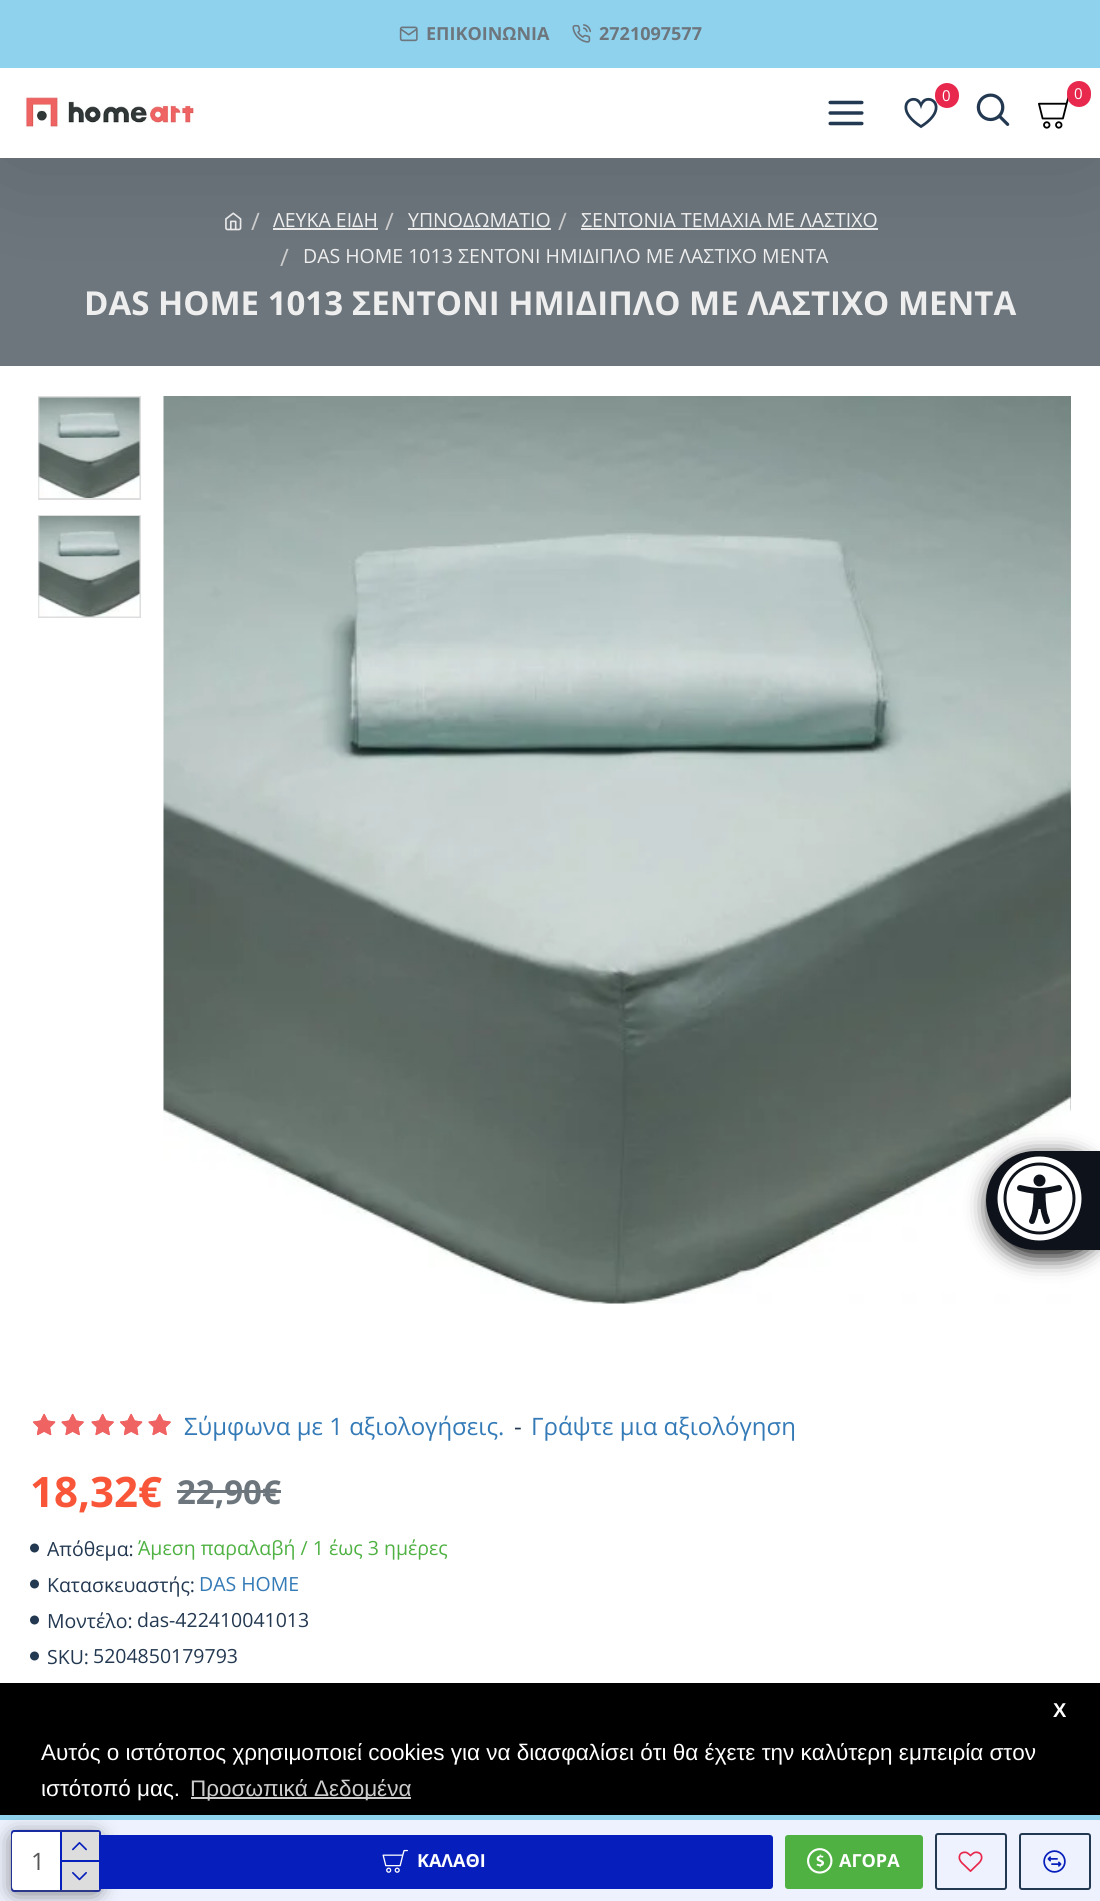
#include <cairo.h>
#include <math.h>
#include <stddef.h>


static void round_rect(cairo_t *cr, double x, double y, double w, double h, double r) {
    cairo_new_sub_path(cr);
    cairo_arc(cr, x + w - r, y + h - r, r, 0, M_PI / 2);
    cairo_arc(cr, x + r, y + h - r, r, M_PI / 2, M_PI);
    cairo_arc(cr, x + r, y + r, r, M_PI, 1.5 * M_PI);
    cairo_arc(cr, x + w - r, y + r, r, 1.5 * M_PI, 2 * M_PI);
    cairo_close_path(cr);
}

static void shadow(cairo_t *cr, double x, double y, double w, double h, double r, double blur, double alpha) {
    cairo_push_group_with_content(cr, CAIRO_CONTENT_ALPHA);
    cairo_set_operator(cr, CAIRO_OPERATOR_SOURCE);
    for (int i = 15; i >= -15 && fmin(w, h) + blur * i / 3 > 0; i -= 2) {
        double e = blur * i / 6;
        cairo_set_source_rgba(cr, 0, 0, 0, alpha * erfc((i - 1) / 8.5) / 2);
        round_rect(cr, x - e, y - e, w + 2 * e, h + 2 * e, fmax(0, fmin(r + e + blur * .6, fmin(w, h) / 2 + e)));
        cairo_fill(cr);
    }
    cairo_pattern_t *soft = cairo_pop_group(cr);
    cairo_mask(cr, soft);
    cairo_pattern_destroy(soft);
}

static void picture(cairo_t *cr, const char *path, double x, double y, double w, double h) {
    cairo_surface_t *image = cairo_image_surface_create_from_png(path);
    cairo_save(cr);
    cairo_set_source_surface(cr, image, x, y);
    cairo_rectangle(cr, x, y, w, h);
    cairo_fill(cr);
    cairo_restore(cr);
    cairo_surface_destroy(image);
}

int main(void) {
    cairo_surface_t *surface = cairo_image_surface_create(CAIRO_FORMAT_RGB24, 1100, 1901);
    cairo_t *cr = cairo_create(surface);
    cairo_font_options_t *options = cairo_font_options_create();
    cairo_font_options_set_hint_metrics(options, CAIRO_HINT_METRICS_OFF);
    cairo_font_options_set_hint_style(options, CAIRO_HINT_STYLE_NONE);
    cairo_set_font_options(cr, options);
    cairo_set_miter_limit(cr, 4);
    cairo_set_source_rgb(cr, 1, 1, 1);
    cairo_paint(cr);
    cairo_set_source_rgb(cr, 0.427, 0.463, 0.49);
    cairo_rectangle(cr, 0, 158, 1100, 208);
    cairo_fill(cr);
    picture(cr, "img8.png", 225, 212, 17, 19);
    cairo_set_source_rgb(cr, 0.933, 0.933, 0.933);
    cairo_rectangle(cr, 273, 228, 105, 2);
    cairo_fill(cr);
    cairo_rectangle(cr, 408, 228, 143, 2);
    cairo_fill(cr);
    cairo_rectangle(cr, 581, 228, 297, 2);
    cairo_fill(cr);
    cairo_set_source_rgb(cr, 0, 0, 0);
    shadow(cr, 15, 83, 1071, 60, 0, 64, 0.2);
    cairo_set_source_rgb(cr, 0.561, 0.824, 0.933);
    cairo_rectangle(cr, 0, 0, 1100, 68);
    cairo_fill(cr);
    picture(cr, "img1.png", 399, 26, 19, 16);
    cairo_select_font_face(cr, "Open Sans", CAIRO_FONT_SLANT_NORMAL, CAIRO_FONT_WEIGHT_BOLD);
    cairo_set_font_size(cr, 18);
    cairo_set_source_rgb(cr, 0.427, 0.463, 0.49);
    cairo_move_to(cr, 426, 40);
    cairo_show_text(cr, "ΕΠΙΚΟΙΝΩΝΙΑ");
    picture(cr, "img2.png", 572, 24, 19, 19);
    cairo_move_to(cr, 599, 40);
    cairo_show_text(cr, "2721097577");
    cairo_set_source_rgb(cr, 1, 1, 1);
    cairo_rectangle(cr, 0, 68, 1100, 90);
    cairo_fill(cr);
    picture(cr, "img3.png", 828, 100, 36, 26);
    picture(cr, "img4.png", 904, 97, 34, 32);
    cairo_set_source_rgb(cr, 0.91, 0.157, 0.302);
    round_rect(cr, 935, 83, 24, 25, 12);
    cairo_fill(cr);
    cairo_select_font_face(cr, "Open Sans", CAIRO_FONT_SLANT_NORMAL, CAIRO_FONT_WEIGHT_NORMAL);
    cairo_set_font_size(cr, 15);
    cairo_set_source_rgb(cr, 1, 1, 1);
    cairo_move_to(cr, 942, 101);
    cairo_show_text(cr, "0");
    picture(cr, "img5.png", 976, 93, 34, 33);
    picture(cr, "img6.png", 1038, 96, 31, 33);
    cairo_set_source_rgb(cr, 0.91, 0.157, 0.302);
    round_rect(cr, 1067, 81, 24, 26, 12);
    cairo_fill(cr);
    cairo_set_source_rgb(cr, 1, 1, 1);
    cairo_move_to(cr, 1074, 99);
    cairo_show_text(cr, "0");
    picture(cr, "img7.png", 25, 97, 169, 32);
    cairo_set_font_size(cr, 24);
    cairo_set_source_rgb(cr, 0.8, 0.8, 0.8);
    cairo_move_to(cr, 251, 230);
    cairo_show_text(cr, "/");
    cairo_set_font_size(cr, 19.5);
    cairo_set_source_rgb(cr, 0.933, 0.933, 0.933);
    cairo_move_to(cr, 273, 227);
    cairo_show_text(cr, "ΛΕΥΚΑ ΕΙΔΗ");
    cairo_set_font_size(cr, 24);
    cairo_set_source_rgb(cr, 0.8, 0.8, 0.8);
    cairo_move_to(cr, 385, 230);
    cairo_show_text(cr, "/");
    cairo_set_font_size(cr, 19.5);
    cairo_set_source_rgb(cr, 0.933, 0.933, 0.933);
    cairo_move_to(cr, 408, 227);
    cairo_show_text(cr, "ΥΠΝΟΔΩΜΑΤΙΟ");
    cairo_set_font_size(cr, 24);
    cairo_set_source_rgb(cr, 0.8, 0.8, 0.8);
    cairo_move_to(cr, 558, 230);
    cairo_show_text(cr, "/");
    cairo_set_font_size(cr, 19.5);
    cairo_set_source_rgb(cr, 0.933, 0.933, 0.933);
    cairo_move_to(cr, 581, 227);
    cairo_show_text(cr, "ΣΕΝΤΟΝΙΑ ΤΕΜΑΧΙΑ ΜΕ ΛΑΣΤΙΧΟ");
    cairo_set_font_size(cr, 24);
    cairo_set_source_rgb(cr, 0.8, 0.8, 0.8);
    cairo_move_to(cr, 280, 266);
    cairo_show_text(cr, "/");
    cairo_set_font_size(cr, 19.5);
    cairo_set_source_rgb(cr, 0.933, 0.933, 0.933);
    cairo_move_to(cr, 303, 263);
    cairo_show_text(cr, "DAS HOME 1013 ΣΕΝΤΟΝΙ ΗΜΙΔΙΠΛΟ ΜΕ ΛΑΣΤΙΧΟ ΜΕΝΤΑ");
    cairo_select_font_face(cr, "Open Sans", CAIRO_FONT_SLANT_NORMAL, CAIRO_FONT_WEIGHT_BOLD);
    cairo_set_font_size(cr, 33);
    cairo_move_to(cr, 84, 315);
    cairo_show_text(cr, "DAS HOME 1013 ΣΕΝΤΟΝΙ ΗΜΙΔΙΠΛΟ ΜΕ ΛΑΣΤΙΧΟ ΜΕΝΤΑ");
    cairo_rectangle(cr, 39, 397, 101, 102);
    cairo_set_source_rgb(cr, 0.867, 0.867, 0.867);
    cairo_stroke(cr);
    picture(cr, "img9.png", 38, 397, 102, 101);
    cairo_rectangle(cr, 39, 516, 101, 101);
    cairo_stroke(cr);
    picture(cr, "img10.png", 38, 516, 102, 101);
    picture(cr, "img11.png", 163, 396, 908, 908);
    picture(cr, "img12.png", 1070, 446, 1, 666);
    picture(cr, "img13.png", 33, 1413, 23, 23);
    picture(cr, "img14.png", 33, 1413, 23, 23);
    picture(cr, "img15.png", 61, 1413, 23, 23);
    picture(cr, "img16.png", 61, 1413, 23, 23);
    picture(cr, "img15.png", 91, 1413, 23, 23);
    picture(cr, "img16.png", 91, 1413, 23, 23);
    picture(cr, "img13.png", 120, 1413, 23, 23);
    picture(cr, "img14.png", 120, 1413, 23, 23);
    picture(cr, "img15.png", 148, 1413, 23, 23);
    picture(cr, "img16.png", 148, 1413, 23, 23);
    cairo_select_font_face(cr, "Open Sans", CAIRO_FONT_SLANT_NORMAL, CAIRO_FONT_WEIGHT_NORMAL);
    cairo_set_font_size(cr, 24);
    cairo_set_source_rgb(cr, 0.2, 0.478, 0.718);
    cairo_move_to(cr, 184, 1435);
    cairo_show_text(cr, "Σύμφωνα με 1 αξιολογήσεις.");
    cairo_set_source_rgb(cr, 0.137, 0.22, 0.318);
    cairo_move_to(cr, 514, 1435);
    cairo_show_text(cr, "-");
    cairo_set_source_rgb(cr, 0.2, 0.478, 0.718);
    cairo_move_to(cr, 531, 1435);
    cairo_show_text(cr, "Γράψτε μια αξιολόγηση");
    cairo_select_font_face(cr, "Open Sans", CAIRO_FONT_SLANT_NORMAL, CAIRO_FONT_WEIGHT_BOLD);
    cairo_set_font_size(cr, 42);
    cairo_set_source_rgb(cr, 0.973, 0.337, 0.224);
    cairo_move_to(cr, 30, 1507);
    cairo_show_text(cr, "18,32€");
    cairo_set_font_size(cr, 33);
    cairo_set_source_rgb(cr, 0.427, 0.463, 0.49);
    cairo_move_to(cr, 177, 1504);
    cairo_show_text(cr, "22,90€");
    cairo_rectangle(cr, 177, 1490, 104, 3);
    cairo_fill(cr);
    picture(cr, "img17.png", 30, 1543, 9, 10);
    cairo_select_font_face(cr, "Open Sans", CAIRO_FONT_SLANT_NORMAL, CAIRO_FONT_WEIGHT_NORMAL);
    cairo_set_font_size(cr, 19.5);
    cairo_set_source_rgb(cr, 0.137, 0.22, 0.318);
    cairo_move_to(cr, 47, 1556);
    cairo_show_text(cr, "Απόθεμα:");
    cairo_set_source_rgb(cr, 0.306, 0.694, 0.259);
    cairo_move_to(cr, 138, 1555);
    cairo_show_text(cr, "Άμεση παραλαβή / 1 έως 3 ημέρες");
    picture(cr, "img17.png", 30, 1579, 9, 10);
    cairo_set_source_rgb(cr, 0.137, 0.22, 0.318);
    cairo_move_to(cr, 47, 1592);
    cairo_show_text(cr, "Κατασκευαστής:");
    cairo_set_source_rgb(cr, 0.2, 0.478, 0.718);
    cairo_move_to(cr, 199, 1591);
    cairo_show_text(cr, "DAS HOME");
    picture(cr, "img17.png", 30, 1615, 9, 10);
    cairo_set_source_rgb(cr, 0.137, 0.22, 0.318);
    cairo_move_to(cr, 47, 1628);
    cairo_show_text(cr, "Μοντέλο:");
    cairo_move_to(cr, 137, 1627);
    cairo_show_text(cr, "das-422410041013");
    picture(cr, "img17.png", 30, 1651, 9, 10);
    cairo_move_to(cr, 47, 1664);
    cairo_show_text(cr, "SKU:");
    cairo_move_to(cr, 93, 1663);
    cairo_show_text(cr, "5204850179793");
    cairo_set_source_rgb(cr, 0.929, 0.949, 0.996);
    cairo_rectangle(cr, 0, 1820, 1100, 81);
    cairo_fill(cr);
    cairo_set_source_rgb(cr, 0.561, 0.824, 0.933);
    cairo_rectangle(cr, 0, 1815, 1100, 5);
    cairo_fill(cr);
    round_rect(cr, 12, 1831, 88, 60, 2);
    cairo_set_source_rgb(cr, 0.024, 0.118, 0.733);
    cairo_stroke(cr);
    cairo_set_source_rgb(cr, 0, 0, 0);
    cairo_rectangle(cr, 0, 1683, 1100, 132);
    cairo_fill(cr);
    cairo_set_source_rgb(cr, 0.333, 0.333, 0.333);
    shadow(cr, 15, 1838, 81, 52, 0, 11, 1);
    cairo_set_source_rgb(cr, 1, 1, 1);
    round_rect(cr, 12, 1832, 87, 58, 3);
    cairo_fill(cr);
    cairo_set_font_size(cr, 24);
    cairo_set_source_rgb(cr, 0.333, 0.333, 0.333);
    cairo_move_to(cr, 31, 1870);
    cairo_show_text(cr, "1");
    cairo_set_source_rgb(cr, 0.024, 0.118, 0.733);
    cairo_rectangle(cr, 60, 1832, 2, 58);
    cairo_fill(cr);
    round_rect(cr, 98, 1835, 675, 54, 3);
    cairo_fill(cr);
    cairo_set_source_rgb(cr, 0.867, 0.867, 0.867);
    cairo_rectangle(cr, 62, 1832, 37, 28);
    cairo_fill(cr);
    cairo_set_source_rgb(cr, 0.024, 0.118, 0.733);
    cairo_rectangle(cr, 62, 1860, 37, 2);
    cairo_fill(cr);
    picture(cr, "img18.png", 72, 1842, 15, 9);
    cairo_set_source_rgb(cr, 0.867, 0.867, 0.867);
    cairo_rectangle(cr, 62, 1862, 37, 28);
    cairo_fill(cr);
    picture(cr, "img19.png", 72, 1872, 15, 9);
    picture(cr, "img20.png", 382, 1849, 26, 24);
    cairo_select_font_face(cr, "Open Sans", CAIRO_FONT_SLANT_NORMAL, CAIRO_FONT_WEIGHT_BOLD);
    cairo_set_font_size(cr, 18);
    cairo_set_source_rgb(cr, 1, 1, 1);
    cairo_move_to(cr, 417, 1867);
    cairo_show_text(cr, "ΚΑΛΑΘΙ");
    cairo_set_source_rgb(cr, 0.306, 0.694, 0.259);
    round_rect(cr, 785, 1835, 138, 54, 3);
    cairo_fill(cr);
    picture(cr, "img21.png", 807, 1848, 26, 26);
    cairo_set_source_rgb(cr, 1, 1, 1);
    cairo_move_to(cr, 839, 1867);
    cairo_show_text(cr, "ΑΓΟΡΑ");
    round_rect(cr, 936, 1834, 70, 55, 2);
    cairo_set_source_rgb(cr, 0.137, 0.22, 0.318);
    cairo_stroke(cr);
    picture(cr, "img22.png", 958, 1851, 25, 21);
    round_rect(cr, 1020, 1834, 70, 55, 2);
    cairo_stroke(cr);
    picture(cr, "img23.png", 1043, 1850, 23, 23);
    cairo_set_source_rgb(cr, 0, 0, 0);
    shadow(cr, 990, 1157, 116, 99, 49.5, 11, 1);
    cairo_set_source_rgb(cr, 0.055, 0.078, 0.106);
    cairo_new_path(cr);
    cairo_move_to(cr, 1035.5, 1151);
    cairo_line_to(cr, 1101, 1151);
    cairo_line_to(cr, 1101, 1250);
    cairo_line_to(cr, 1035.5, 1250);
    cairo_curve_to(cr, 1008, 1250, 986, 1228, 986, 1200.5);
    cairo_curve_to(cr, 986, 1173, 1008, 1151, 1035.5, 1151);
    cairo_close_path(cr);
    cairo_fill(cr);
    picture(cr, "img24.png", 997, 1156, 85, 85);
    cairo_select_font_face(cr, "Liberation Sans", CAIRO_FONT_SLANT_NORMAL, CAIRO_FONT_WEIGHT_BOLD);
    cairo_set_font_size(cr, 20);
    cairo_set_source_rgb(cr, 1, 1, 1);
    cairo_move_to(cr, 1053, 1717);
    cairo_show_text(cr, "X");
    cairo_select_font_face(cr, "Liberation Sans", CAIRO_FONT_SLANT_NORMAL, CAIRO_FONT_WEIGHT_NORMAL);
    cairo_set_font_size(cr, 22.5);
    cairo_move_to(cr, 41, 1760);
    cairo_show_text(cr, "Αυτός ο ιστότοπος χρησιμοποιεί cookies για να διασφαλίσει ότι θα έχετε την καλύτερη εμπειρία στον");
    cairo_move_to(cr, 41, 1796);
    cairo_show_text(cr, "ιστότοπό μας.");
    cairo_set_source_rgb(cr, 0.8, 0.8, 0.8);
    cairo_rectangle(cr, 191, 1797, 220, 2);
    cairo_fill(cr);
    cairo_move_to(cr, 190, 1796);
    cairo_show_text(cr, "Προσωπικά Δεδομένα");
    cairo_surface_write_to_png(surface, "page.png");
    cairo_font_options_destroy(options);
    cairo_destroy(cr);
    cairo_surface_destroy(surface);
    return 0;
}
